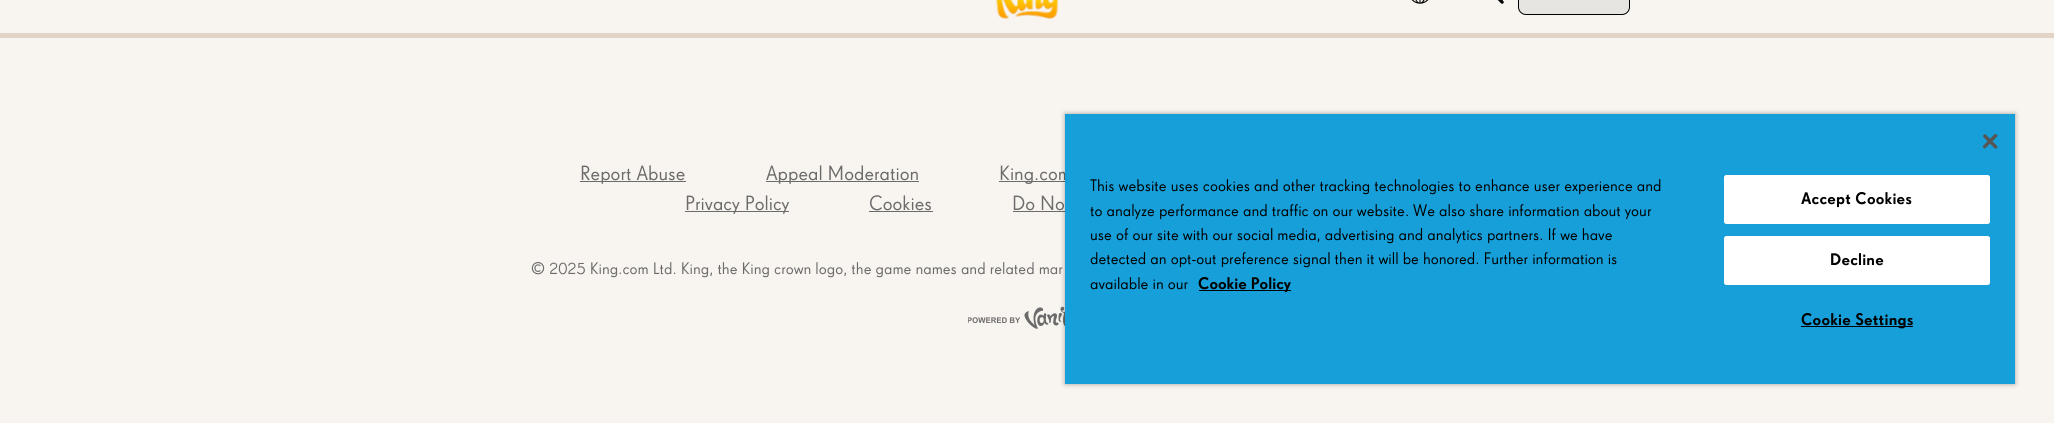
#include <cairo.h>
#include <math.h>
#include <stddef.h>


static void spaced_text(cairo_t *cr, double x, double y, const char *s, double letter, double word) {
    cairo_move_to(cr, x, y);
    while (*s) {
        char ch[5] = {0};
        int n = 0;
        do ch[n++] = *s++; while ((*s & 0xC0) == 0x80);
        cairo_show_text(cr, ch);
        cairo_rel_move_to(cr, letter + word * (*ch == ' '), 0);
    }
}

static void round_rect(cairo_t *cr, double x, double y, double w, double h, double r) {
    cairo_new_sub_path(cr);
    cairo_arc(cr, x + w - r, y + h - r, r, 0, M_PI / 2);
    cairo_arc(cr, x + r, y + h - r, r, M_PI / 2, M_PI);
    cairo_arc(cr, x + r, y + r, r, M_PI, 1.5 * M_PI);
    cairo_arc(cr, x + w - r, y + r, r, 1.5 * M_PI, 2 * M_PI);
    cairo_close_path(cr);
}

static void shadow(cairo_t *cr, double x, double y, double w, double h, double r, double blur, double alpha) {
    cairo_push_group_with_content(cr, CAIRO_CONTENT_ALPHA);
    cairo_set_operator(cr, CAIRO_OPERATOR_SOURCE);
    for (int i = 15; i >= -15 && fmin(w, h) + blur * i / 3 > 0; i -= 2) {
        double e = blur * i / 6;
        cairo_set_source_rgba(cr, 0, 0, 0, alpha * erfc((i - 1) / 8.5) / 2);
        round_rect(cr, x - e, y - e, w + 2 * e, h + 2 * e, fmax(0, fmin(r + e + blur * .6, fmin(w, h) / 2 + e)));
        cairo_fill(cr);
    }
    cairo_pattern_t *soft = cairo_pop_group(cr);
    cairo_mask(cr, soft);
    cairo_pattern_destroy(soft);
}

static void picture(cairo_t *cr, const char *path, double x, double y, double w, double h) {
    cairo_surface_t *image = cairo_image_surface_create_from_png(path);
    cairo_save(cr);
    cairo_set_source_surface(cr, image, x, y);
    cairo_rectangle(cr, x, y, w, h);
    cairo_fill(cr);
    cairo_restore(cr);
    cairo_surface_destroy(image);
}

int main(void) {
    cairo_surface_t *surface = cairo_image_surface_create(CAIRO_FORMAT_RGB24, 2054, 423);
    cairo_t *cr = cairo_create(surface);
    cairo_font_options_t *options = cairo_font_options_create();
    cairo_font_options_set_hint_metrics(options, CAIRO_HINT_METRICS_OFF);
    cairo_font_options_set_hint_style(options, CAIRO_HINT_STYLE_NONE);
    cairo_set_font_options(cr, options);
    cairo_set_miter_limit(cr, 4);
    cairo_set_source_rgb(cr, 0.969, 0.957, 0.937);
    cairo_paint(cr);
    cairo_set_source_rgb(cr, 0.886, 0.835, 0.78);
    cairo_rectangle(cr, 0, 33, 2054, 5);
    cairo_fill(cr);
    picture(cr, "img1.png", 996, 0, 63, 19);
    picture(cr, "img2.png", 1411, 0, 18, 4);
    picture(cr, "img3.png", 1497, 0, 7, 4);
    cairo_set_source_rgb(cr, 0.906, 0.898, 0.882);
    round_rect(cr, 1518.5, -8.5, 111, 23, 7.5);
    cairo_fill_preserve(cr);
    cairo_set_source_rgb(cr, 0, 0, 0);
    cairo_set_line_width(cr, 1);
    cairo_stroke(cr);
    cairo_set_source_rgb(cr, 0.42, 0.42, 0.42);
    cairo_rectangle(cr, 580, 181, 106, 1);
    cairo_fill(cr);
    cairo_select_font_face(cr, "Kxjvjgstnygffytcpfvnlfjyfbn", CAIRO_FONT_SLANT_NORMAL, CAIRO_FONT_WEIGHT_NORMAL);
    cairo_set_font_size(cr, 20);
    cairo_move_to(cr, 580, 180);
    cairo_show_text(cr, "Report Abuse");
    cairo_rectangle(cr, 766, 181, 153, 1);
    cairo_fill(cr);
    cairo_move_to(cr, 766, 180);
    cairo_show_text(cr, "Appeal Moderation");
    cairo_rectangle(cr, 999, 181, 72, 1);
    cairo_fill(cr);
    cairo_move_to(cr, 999, 180);
    cairo_show_text(cr, "King.com");
    cairo_rectangle(cr, 685, 211, 104, 1);
    cairo_fill(cr);
    cairo_move_to(cr, 685, 210);
    cairo_show_text(cr, "Privacy Policy");
    cairo_move_to(cr, 869, 210);
    cairo_show_text(cr, "Cookies");
    cairo_rectangle(cr, 869, 211, 64, 1);
    cairo_fill(cr);
    cairo_move_to(cr, 1012, 210);
    cairo_show_text(cr, "Do No");
    cairo_rectangle(cr, 1013, 211, 52, 1);
    cairo_fill(cr);
    cairo_set_font_size(cr, 16.25);
    cairo_move_to(cr, 531, 274);
    cairo_show_text(cr, "© 2025 King.com Ltd. King, the King crown logo, the game names and related mar");
    picture(cr, "img4.png", 968, 306, 97, 23);
    cairo_set_source_rgb(cr, 0, 0, 0);
    shadow(cr, 1065, 114, 950, 270, 0, 2.5, 0.35);
    cairo_set_source_rgb(cr, 0.086, 0.624, 0.851);
    cairo_rectangle(cr, 1065, 114, 950, 270);
    cairo_fill(cr);
    picture(cr, "img5.png", 1983, 134, 15, 15);
    cairo_set_source_rgb(cr, 0, 0, 0);
    cairo_move_to(cr, 1090, 191);
    cairo_show_text(cr, "This website uses cookies and other tracking technologies to enhance user experience and");
    cairo_move_to(cr, 1090, 216);
    cairo_show_text(cr, "to analyze performance and traffic on our website. We also share information about your");
    cairo_move_to(cr, 1090, 240);
    cairo_show_text(cr, "use of our site with our social media, advertising and analytics partners. If we have");
    cairo_move_to(cr, 1090, 264);
    cairo_show_text(cr, "detected an opt-out preference signal then it will be honored. Further information is");
    cairo_move_to(cr, 1090, 289);
    cairo_show_text(cr, "available in our");
    cairo_rectangle(cr, 1199, 290, 92, 1);
    cairo_fill(cr);
    cairo_select_font_face(cr, "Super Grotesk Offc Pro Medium", CAIRO_FONT_SLANT_NORMAL, CAIRO_FONT_WEIGHT_NORMAL);
    cairo_move_to(cr, 1198, 289);
    cairo_show_text(cr, "Cookie Policy");
    cairo_set_source_rgb(cr, 1, 1, 1);
    round_rect(cr, 1724.5, 175.5, 265, 48, 2);
    cairo_fill_preserve(cr);
    cairo_stroke(cr);
    cairo_set_source_rgb(cr, 0, 0, 0);
    spaced_text(cr, 1801, 204, "Accept Cookies", 0.2, 0);
    cairo_set_source_rgb(cr, 1, 1, 1);
    round_rect(cr, 1724.5, 236.5, 265, 48, 2);
    cairo_fill_preserve(cr);
    cairo_stroke(cr);
    cairo_set_source_rgb(cr, 0, 0, 0);
    spaced_text(cr, 1830, 265, "Decline", 0.2, 0);
    cairo_rectangle(cr, 1801, 326, 112, 1);
    cairo_fill(cr);
    spaced_text(cr, 1801, 325, "Cookie Settings", 0.2, 0);
    cairo_surface_write_to_png(surface, "page.png");
    cairo_font_options_destroy(options);
    cairo_destroy(cr);
    cairo_surface_destroy(surface);
    return 0;
}
